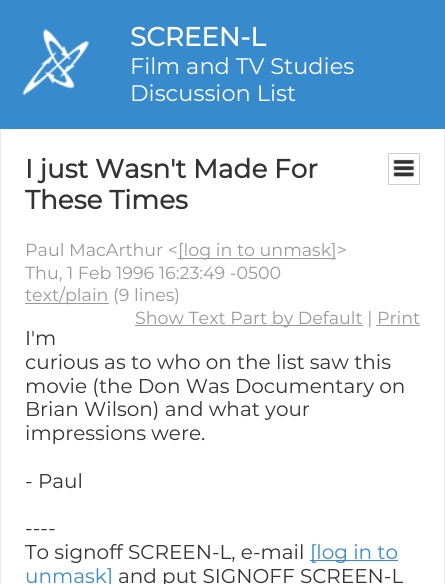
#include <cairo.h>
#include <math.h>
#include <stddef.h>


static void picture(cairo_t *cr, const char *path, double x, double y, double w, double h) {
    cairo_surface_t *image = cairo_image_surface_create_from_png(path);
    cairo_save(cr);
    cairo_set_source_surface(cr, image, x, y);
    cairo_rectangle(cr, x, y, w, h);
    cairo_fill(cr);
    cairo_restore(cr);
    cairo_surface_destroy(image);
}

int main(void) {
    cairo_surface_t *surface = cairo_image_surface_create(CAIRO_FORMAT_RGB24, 445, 584);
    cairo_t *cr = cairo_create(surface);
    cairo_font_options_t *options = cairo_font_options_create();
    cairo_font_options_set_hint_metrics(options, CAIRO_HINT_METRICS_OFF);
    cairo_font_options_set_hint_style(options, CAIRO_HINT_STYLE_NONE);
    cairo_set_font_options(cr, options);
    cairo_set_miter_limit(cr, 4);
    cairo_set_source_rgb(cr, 0.216, 0.541, 0.8);
    cairo_paint(cr);
    picture(cr, "img1.png", 22, 28, 67, 68);
    cairo_select_font_face(cr, "Montserrat", CAIRO_FONT_SLANT_NORMAL, CAIRO_FONT_WEIGHT_BOLD);
    cairo_set_font_size(cr, 26.25);
    cairo_set_source_rgb(cr, 1, 1, 1);
    cairo_move_to(cr, 130, 46);
    cairo_show_text(cr, "SCREEN-L");
    cairo_select_font_face(cr, "Montserrat Thin", CAIRO_FONT_SLANT_NORMAL, CAIRO_FONT_WEIGHT_NORMAL);
    cairo_set_font_size(cr, 22.5);
    cairo_move_to(cr, 130, 74);
    cairo_show_text(cr, "Film and TV Studies");
    cairo_move_to(cr, 130, 101);
    cairo_show_text(cr, "Discussion List");
    cairo_rectangle(cr, 1, 129, 443, 455);
    cairo_fill(cr);
    cairo_set_source_rgb(cr, 0.918, 0.918, 0.918);
    cairo_rectangle(cr, 444, 129, 1, 455);
    cairo_fill(cr);
    cairo_rectangle(cr, 0, 129, 1, 455);
    cairo_fill(cr);
    cairo_rectangle(cr, 388.5, 153.5, 31, 31);
    cairo_set_source_rgb(cr, 0.8, 0.8, 0.8);
    cairo_set_line_width(cr, 1);
    cairo_stroke(cr);
    picture(cr, "img2.png", 393, 159, 21, 18);
    cairo_select_font_face(cr, "Montserrat", CAIRO_FONT_SLANT_NORMAL, CAIRO_FONT_WEIGHT_BOLD);
    cairo_set_font_size(cr, 26.25);
    cairo_set_source_rgb(cr, 0.2, 0.2, 0.2);
    cairo_move_to(cr, 25, 178);
    cairo_show_text(cr, "I just Wasn't Made For");
    cairo_move_to(cr, 25, 209);
    cairo_show_text(cr, "These Times");
    cairo_select_font_face(cr, "Montserrat Thin", CAIRO_FONT_SLANT_NORMAL, CAIRO_FONT_WEIGHT_NORMAL);
    cairo_set_font_size(cr, 17.5);
    cairo_set_source_rgb(cr, 0.6, 0.6, 0.6);
    cairo_move_to(cr, 25, 256);
    cairo_show_text(cr, "Paul MacArthur <");
    cairo_rectangle(cr, 178, 258, 158, 1);
    cairo_fill(cr);
    cairo_move_to(cr, 178, 256);
    cairo_show_text(cr, "[log in to unmask]>");
    cairo_move_to(cr, 25, 279);
    cairo_show_text(cr, "Thu, 1 Feb 1996 16:23:49 -0500");
    cairo_rectangle(cr, 25, 303, 84, 1);
    cairo_fill(cr);
    cairo_move_to(cr, 25, 301);
    cairo_show_text(cr, "text/plain (9 lines)");
    cairo_rectangle(cr, 135, 325, 228, 1);
    cairo_fill(cr);
    cairo_move_to(cr, 135, 324);
    cairo_show_text(cr, "Show Text Part by Default | Print");
    cairo_rectangle(cr, 376, 325, 44, 1);
    cairo_fill(cr);
    cairo_set_font_size(cr, 20);
    cairo_set_source_rgb(cr, 0.2, 0.2, 0.2);
    cairo_move_to(cr, 25, 345);
    cairo_show_text(cr, "I'm");
    cairo_move_to(cr, 25, 369);
    cairo_show_text(cr, "curious as to who on the list saw this");
    cairo_move_to(cr, 25, 393);
    cairo_show_text(cr, "movie (the Don Was Documentary on");
    cairo_move_to(cr, 25, 416);
    cairo_show_text(cr, "Brian Wilson) and what your");
    cairo_move_to(cr, 25, 440);
    cairo_show_text(cr, "impressions were.");
    cairo_move_to(cr, 25, 488);
    cairo_show_text(cr, "- Paul");
    cairo_move_to(cr, 25, 535);
    cairo_show_text(cr, "----");
    cairo_move_to(cr, 25, 559);
    cairo_show_text(cr, "To signoff SCREEN-L, e-mail");
    cairo_set_source_rgb(cr, 0.216, 0.541, 0.8);
    cairo_rectangle(cr, 310, 560, 88, 1);
    cairo_fill(cr);
    cairo_move_to(cr, 310, 559);
    cairo_show_text(cr, "[log in to");
    cairo_move_to(cr, 25, 583);
    cairo_show_text(cr, "unmask]");
    cairo_set_source_rgb(cr, 0.2, 0.2, 0.2);
    cairo_move_to(cr, 118, 583);
    cairo_show_text(cr, "and put SIGNOFF SCREEN-L");
    cairo_surface_write_to_png(surface, "page.png");
    cairo_font_options_destroy(options);
    cairo_destroy(cr);
    cairo_surface_destroy(surface);
    return 0;
}
